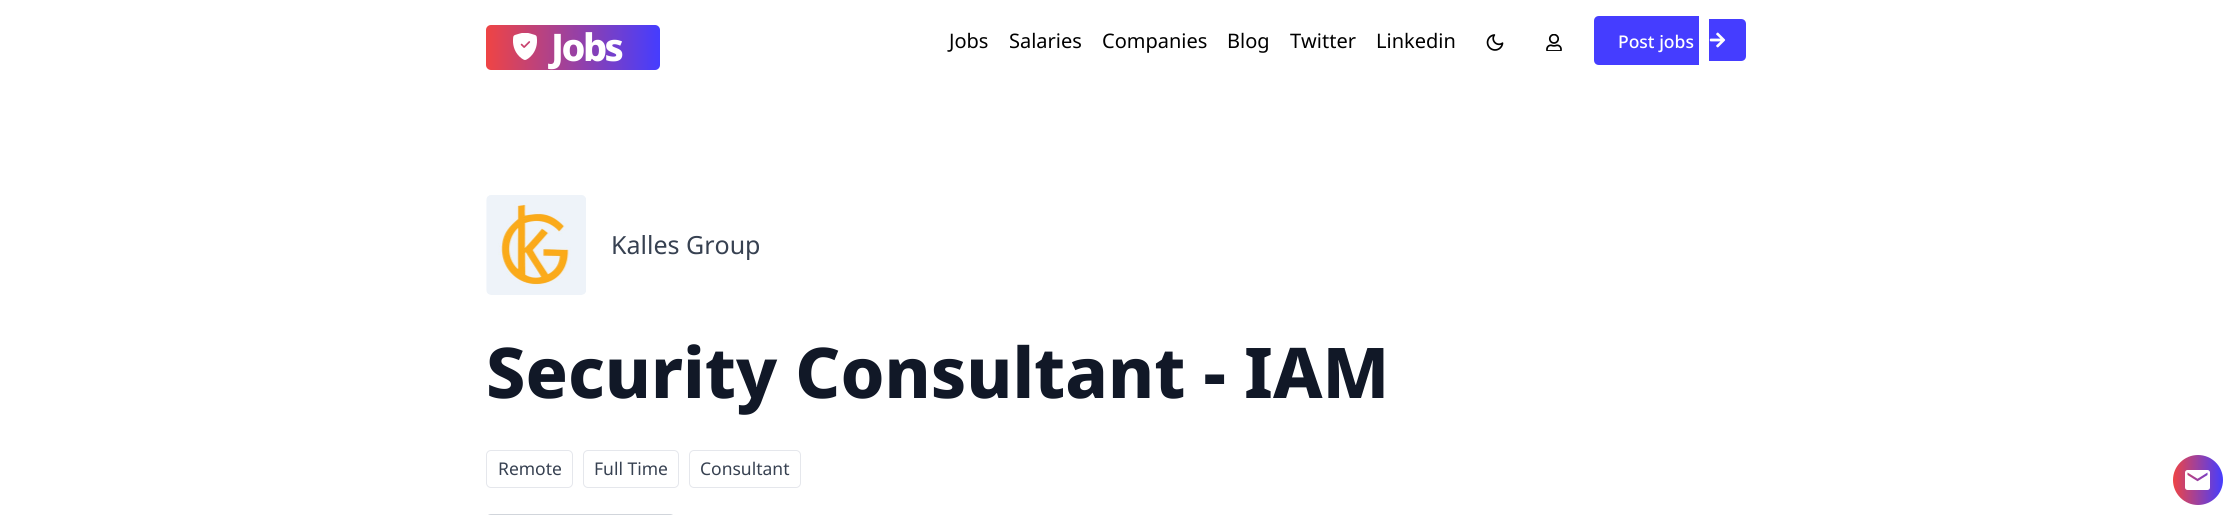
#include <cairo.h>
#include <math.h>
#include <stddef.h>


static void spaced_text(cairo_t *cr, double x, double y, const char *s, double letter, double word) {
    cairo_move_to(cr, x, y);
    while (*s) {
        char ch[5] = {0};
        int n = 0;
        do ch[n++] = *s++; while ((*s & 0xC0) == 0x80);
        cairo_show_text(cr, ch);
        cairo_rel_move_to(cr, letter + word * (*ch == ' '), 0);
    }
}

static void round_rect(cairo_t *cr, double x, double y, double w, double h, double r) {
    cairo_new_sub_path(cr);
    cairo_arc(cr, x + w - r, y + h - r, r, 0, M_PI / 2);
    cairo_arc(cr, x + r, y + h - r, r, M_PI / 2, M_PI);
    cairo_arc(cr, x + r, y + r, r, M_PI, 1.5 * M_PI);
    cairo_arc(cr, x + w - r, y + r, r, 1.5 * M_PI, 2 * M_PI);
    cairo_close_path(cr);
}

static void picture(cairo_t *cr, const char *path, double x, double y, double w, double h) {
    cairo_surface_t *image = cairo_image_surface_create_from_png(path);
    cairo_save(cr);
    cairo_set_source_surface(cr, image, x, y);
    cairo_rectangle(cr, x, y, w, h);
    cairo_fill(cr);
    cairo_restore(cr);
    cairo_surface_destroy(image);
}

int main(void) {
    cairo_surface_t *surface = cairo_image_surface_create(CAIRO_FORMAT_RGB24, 2232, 515);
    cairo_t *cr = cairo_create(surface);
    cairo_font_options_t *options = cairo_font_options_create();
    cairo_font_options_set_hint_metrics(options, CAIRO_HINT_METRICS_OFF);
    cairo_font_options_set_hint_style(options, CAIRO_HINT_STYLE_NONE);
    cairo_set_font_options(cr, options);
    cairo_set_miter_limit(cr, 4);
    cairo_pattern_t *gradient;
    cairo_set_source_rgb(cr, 1, 1, 1);
    cairo_paint(cr);
    gradient = cairo_pattern_create_linear(486, 48, 660, 47);
    cairo_pattern_add_color_stop_rgba(gradient, 0, 0.937, 0.267, 0.267, 1);
    cairo_pattern_add_color_stop_rgba(gradient, 1, 0.271, 0.239, 1, 1);
    cairo_set_source(cr, gradient);
    cairo_pattern_destroy(gradient);
    round_rect(cr, 486, 25, 174, 45, 5);
    cairo_fill(cr);
    picture(cr, "img1.png", 513, 33, 24, 27);
    cairo_select_font_face(cr, "Noto Sans ExtraBold", CAIRO_FONT_SLANT_NORMAL, CAIRO_FONT_WEIGHT_NORMAL);
    cairo_set_font_size(cr, 38);
    cairo_set_source_rgb(cr, 1, 1, 1);
    spaced_text(cr, 551, 61, "Jobs", -2.5, 0);
    cairo_select_font_face(cr, "Noto Sans", CAIRO_FONT_SLANT_NORMAL, CAIRO_FONT_WEIGHT_NORMAL);
    cairo_set_font_size(cr, 20);
    cairo_set_source_rgb(cr, 0, 0, 0);
    cairo_move_to(cr, 949, 48);
    cairo_show_text(cr, "Jobs");
    cairo_move_to(cr, 1009, 48);
    cairo_show_text(cr, "Salaries");
    cairo_move_to(cr, 1102, 48);
    cairo_show_text(cr, "Companies");
    cairo_move_to(cr, 1227, 48);
    cairo_show_text(cr, "Blog");
    cairo_move_to(cr, 1290, 48);
    cairo_show_text(cr, "Twitter");
    cairo_move_to(cr, 1376, 48);
    cairo_show_text(cr, "Linkedin");
    picture(cr, "img2.png", 1486, 34, 18, 17);
    picture(cr, "img3.png", 1546, 34, 16, 17);
    cairo_set_source_rgb(cr, 0.271, 0.239, 1);
    cairo_new_path(cr);
    cairo_move_to(cr, 1599, 16);
    cairo_line_to(cr, 1699, 16);
    cairo_line_to(cr, 1699, 65);
    cairo_line_to(cr, 1599, 65);
    cairo_curve_to(cr, 1596, 65, 1594, 63, 1594, 60);
    cairo_line_to(cr, 1594, 21);
    cairo_curve_to(cr, 1594, 18, 1596, 16, 1599, 16);
    cairo_close_path(cr);
    cairo_fill(cr);
    cairo_new_path(cr);
    cairo_move_to(cr, 1709, 19);
    cairo_line_to(cr, 1741, 19);
    cairo_curve_to(cr, 1744, 19, 1746, 21, 1746, 24);
    cairo_line_to(cr, 1746, 56);
    cairo_curve_to(cr, 1746, 59, 1744, 61, 1741, 61);
    cairo_line_to(cr, 1709, 61);
    cairo_close_path(cr);
    cairo_fill(cr);
    cairo_select_font_face(cr, "Noto Sans Medium", CAIRO_FONT_SLANT_NORMAL, CAIRO_FONT_WEIGHT_NORMAL);
    cairo_set_font_size(cr, 17.5);
    cairo_set_source_rgb(cr, 1, 1, 1);
    cairo_move_to(cr, 1618, 48);
    cairo_show_text(cr, "Post jobs");
    picture(cr, "img4.png", 1709, 32, 17, 16);
    picture(cr, "img5.png", 486, 195, 100, 100);
    cairo_select_font_face(cr, "Noto Sans", CAIRO_FONT_SLANT_NORMAL, CAIRO_FONT_WEIGHT_NORMAL);
    cairo_set_font_size(cr, 25);
    cairo_set_source_rgb(cr, 0.216, 0.255, 0.318);
    cairo_move_to(cr, 611, 254);
    cairo_show_text(cr, "Kalles Group");
    cairo_select_font_face(cr, "Noto Sans ExtraBold", CAIRO_FONT_SLANT_NORMAL, CAIRO_FONT_WEIGHT_NORMAL);
    cairo_set_font_size(cr, 70);
    cairo_set_source_rgb(cr, 0.067, 0.094, 0.153);
    cairo_move_to(cr, 486, 398);
    cairo_show_text(cr, "Security Consultant - IAM");
    round_rect(cr, 486.5, 450.5, 86, 37, 4.5);
    cairo_set_source_rgb(cr, 0.898, 0.906, 0.922);
    cairo_set_line_width(cr, 1);
    cairo_stroke(cr);
    cairo_select_font_face(cr, "Noto Sans", CAIRO_FONT_SLANT_NORMAL, CAIRO_FONT_WEIGHT_NORMAL);
    cairo_set_font_size(cr, 17.5);
    cairo_set_source_rgb(cr, 0.216, 0.255, 0.318);
    cairo_move_to(cr, 498, 475);
    cairo_show_text(cr, "Remote");
    round_rect(cr, 583.5, 450.5, 95, 37, 4.5);
    cairo_set_source_rgb(cr, 0.898, 0.906, 0.922);
    cairo_stroke(cr);
    cairo_set_source_rgb(cr, 0.216, 0.255, 0.318);
    cairo_move_to(cr, 594, 475);
    cairo_show_text(cr, "Full Time");
    round_rect(cr, 689.5, 450.5, 111, 37, 4.5);
    cairo_set_source_rgb(cr, 0.898, 0.906, 0.922);
    cairo_stroke(cr);
    cairo_set_source_rgb(cr, 0.216, 0.255, 0.318);
    cairo_move_to(cr, 700, 475);
    cairo_show_text(cr, "Consultant");
    cairo_set_source_rgb(cr, 0.82, 0.835, 0.859);
    round_rect(cr, 486, 514, 189, 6, 5);
    cairo_fill(cr);
    gradient = cairo_pattern_create_linear(2173, 480, 2223, 480);
    cairo_pattern_add_color_stop_rgba(gradient, 0, 0.937, 0.267, 0.267, 1);
    cairo_pattern_add_color_stop_rgba(gradient, 1, 0.271, 0.239, 1, 1);
    cairo_set_source(cr, gradient);
    cairo_pattern_destroy(gradient);
    cairo_arc(cr, 2198, 480, 25, 0, 2 * M_PI);
    cairo_fill(cr);
    picture(cr, "img6.png", 2185, 470, 25, 20);
    cairo_surface_write_to_png(surface, "page.png");
    cairo_font_options_destroy(options);
    cairo_destroy(cr);
    cairo_surface_destroy(surface);
    return 0;
}
